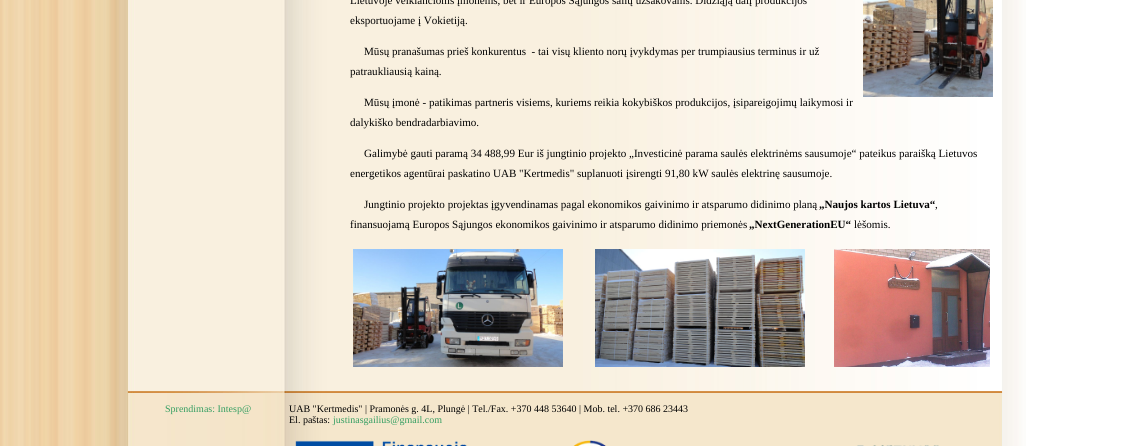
#include <cairo.h>
#include <math.h>
#include <stddef.h>


static void picture(cairo_t *cr, const char *path, double x, double y, double w, double h) {
    cairo_surface_t *image = cairo_image_surface_create_from_png(path);
    cairo_save(cr);
    cairo_set_source_surface(cr, image, x, y);
    cairo_rectangle(cr, x, y, w, h);
    cairo_fill(cr);
    cairo_restore(cr);
    cairo_surface_destroy(image);
}

int main(void) {
    cairo_surface_t *surface = cairo_image_surface_create(CAIRO_FORMAT_RGB24, 1130, 446);
    cairo_t *cr = cairo_create(surface);
    cairo_font_options_t *options = cairo_font_options_create();
    cairo_font_options_set_hint_metrics(options, CAIRO_HINT_METRICS_OFF);
    cairo_font_options_set_hint_style(options, CAIRO_HINT_STYLE_NONE);
    cairo_set_font_options(cr, options);
    cairo_set_miter_limit(cr, 4);
    cairo_set_source_rgb(cr, 1, 1, 1);
    cairo_paint(cr);
    picture(cr, "img1.png", 0, 0, 127, 446);
    picture(cr, "img2.png", 127, 0, 876, 446);
    picture(cr, "img3.png", 1003, 0, 23, 446);
    cairo_select_font_face(cr, "Liberation Serif", CAIRO_FONT_SLANT_NORMAL, CAIRO_FONT_WEIGHT_NORMAL);
    cairo_set_font_size(cr, 11.07);
    cairo_set_source_rgb(cr, 0, 0, 0);
    cairo_move_to(cr, 350, 4);
    cairo_show_text(cr, "Lietuvoje veikiančioms įmonėms, bet ir Europos Sąjungos šalių užsakovams. Didžiąją dalį produkcijos");
    cairo_move_to(cr, 350, 24);
    cairo_show_text(cr, "eksportuojame į Vokietiją.");
    picture(cr, "img4.png", 863, 0, 130, 97);
    cairo_move_to(cr, 364, 55);
    cairo_show_text(cr, "Mūsų pranašumas prieš konkurentus  - tai visų kliento norų įvykdymas per trumpiausius terminus ir už");
    cairo_move_to(cr, 350, 75);
    cairo_show_text(cr, "patraukliausią kainą.");
    cairo_move_to(cr, 364, 106);
    cairo_show_text(cr, "Mūsų įmonė - patikimas partneris visiems, kuriems reikia kokybiškos produkcijos, įsipareigojimų laikymosi ir");
    cairo_move_to(cr, 350, 126);
    cairo_show_text(cr, "dalykiško bendradarbiavimo.");
    cairo_move_to(cr, 364, 157);
    cairo_show_text(cr, "Galimybė gauti paramą 34 488,99 Eur iš jungtinio projekto „Investicinė parama saulės elektrinėms sausumoje“ pateikus paraišką Lietuvos");
    cairo_move_to(cr, 350, 177);
    cairo_show_text(cr, "energetikos agentūrai paskatino UAB \"Kertmedis\" suplanuoti įsirengti 91,80 kW saulės elektrinę sausumoje.");
    cairo_move_to(cr, 364, 208);
    cairo_show_text(cr, "Jungtinio projekto projektas įgyvendinamas pagal ekonomikos gaivinimo ir atsparumo didinimo planą");
    cairo_select_font_face(cr, "Liberation Serif", CAIRO_FONT_SLANT_NORMAL, CAIRO_FONT_WEIGHT_BOLD);
    cairo_move_to(cr, 819, 208);
    cairo_show_text(cr, "„Naujos kartos Lietuva“");
    cairo_select_font_face(cr, "Liberation Serif", CAIRO_FONT_SLANT_NORMAL, CAIRO_FONT_WEIGHT_NORMAL);
    cairo_move_to(cr, 935, 208);
    cairo_show_text(cr, ",");
    cairo_move_to(cr, 350, 228);
    cairo_show_text(cr, "finansuojamą Europos Sąjungos ekonomikos gaivinimo ir atsparumo didinimo priemonės");
    cairo_select_font_face(cr, "Liberation Serif", CAIRO_FONT_SLANT_NORMAL, CAIRO_FONT_WEIGHT_BOLD);
    cairo_move_to(cr, 749, 228);
    cairo_show_text(cr, "„NextGenerationEU“");
    cairo_select_font_face(cr, "Liberation Serif", CAIRO_FONT_SLANT_NORMAL, CAIRO_FONT_WEIGHT_NORMAL);
    cairo_move_to(cr, 854, 228);
    cairo_show_text(cr, "lėšomis.");
    picture(cr, "img5.png", 353, 249, 210, 118);
    picture(cr, "img6.png", 595, 249, 210, 118);
    picture(cr, "img7.png", 834, 249, 156, 118);
    picture(cr, "img8.png", 127, 391, 876, 2);
    picture(cr, "img9.png", 127, 393, 875, 53);
    cairo_set_font_size(cr, 10);
    cairo_set_source_rgb(cr, 0.204, 0.62, 0.38);
    cairo_move_to(cr, 165, 412);
    cairo_show_text(cr, "Sprendimas: Intesp@");
    cairo_set_source_rgb(cr, 0, 0, 0);
    cairo_move_to(cr, 289, 412);
    cairo_show_text(cr, "UAB \"Kertmedis\" | Pramonės g. 4L, Plungė | Tel./Fax. +370 448 53640 | Mob. tel. +370 686 23443");
    cairo_move_to(cr, 289, 423);
    cairo_show_text(cr, "El. paštas:");
    cairo_set_source_rgb(cr, 0.204, 0.62, 0.38);
    cairo_move_to(cr, 333, 423);
    cairo_show_text(cr, "justinasgailius@gmail.com");
    picture(cr, "img10.png", 295, 440, 644, 6);
    cairo_surface_write_to_png(surface, "page.png");
    cairo_font_options_destroy(options);
    cairo_destroy(cr);
    cairo_surface_destroy(surface);
    return 0;
}
